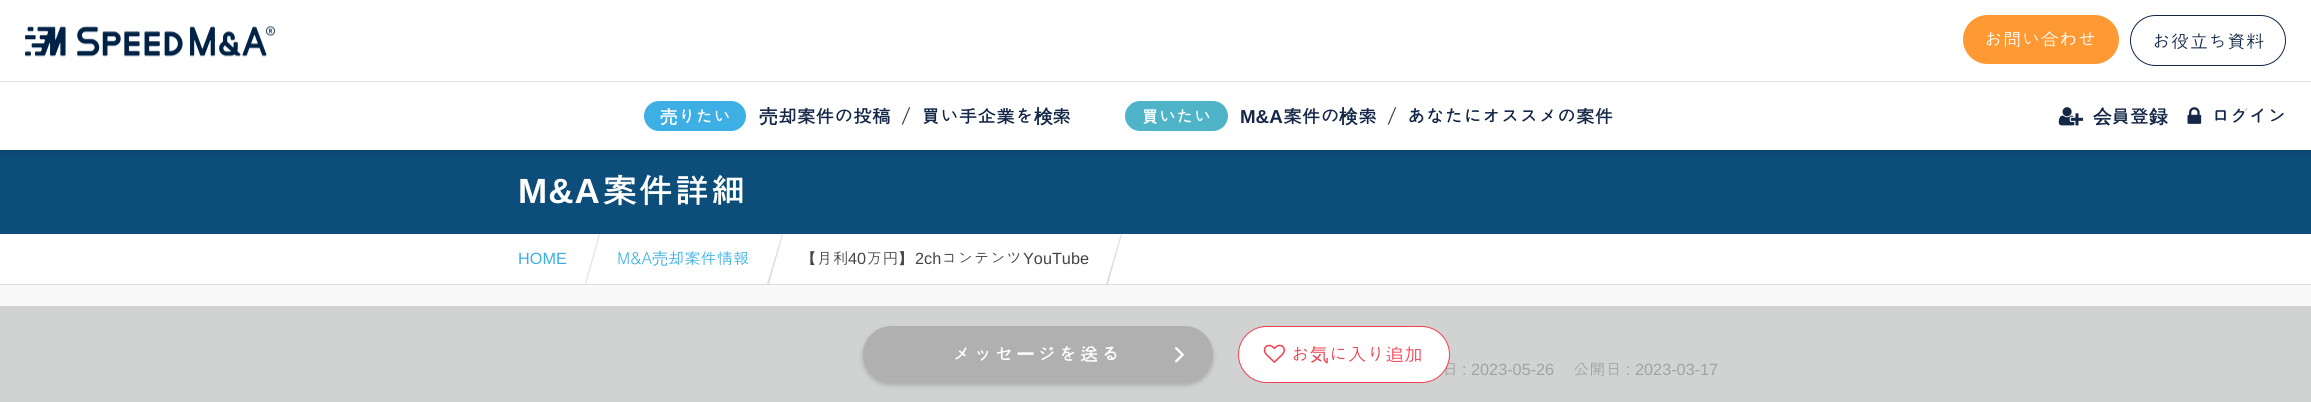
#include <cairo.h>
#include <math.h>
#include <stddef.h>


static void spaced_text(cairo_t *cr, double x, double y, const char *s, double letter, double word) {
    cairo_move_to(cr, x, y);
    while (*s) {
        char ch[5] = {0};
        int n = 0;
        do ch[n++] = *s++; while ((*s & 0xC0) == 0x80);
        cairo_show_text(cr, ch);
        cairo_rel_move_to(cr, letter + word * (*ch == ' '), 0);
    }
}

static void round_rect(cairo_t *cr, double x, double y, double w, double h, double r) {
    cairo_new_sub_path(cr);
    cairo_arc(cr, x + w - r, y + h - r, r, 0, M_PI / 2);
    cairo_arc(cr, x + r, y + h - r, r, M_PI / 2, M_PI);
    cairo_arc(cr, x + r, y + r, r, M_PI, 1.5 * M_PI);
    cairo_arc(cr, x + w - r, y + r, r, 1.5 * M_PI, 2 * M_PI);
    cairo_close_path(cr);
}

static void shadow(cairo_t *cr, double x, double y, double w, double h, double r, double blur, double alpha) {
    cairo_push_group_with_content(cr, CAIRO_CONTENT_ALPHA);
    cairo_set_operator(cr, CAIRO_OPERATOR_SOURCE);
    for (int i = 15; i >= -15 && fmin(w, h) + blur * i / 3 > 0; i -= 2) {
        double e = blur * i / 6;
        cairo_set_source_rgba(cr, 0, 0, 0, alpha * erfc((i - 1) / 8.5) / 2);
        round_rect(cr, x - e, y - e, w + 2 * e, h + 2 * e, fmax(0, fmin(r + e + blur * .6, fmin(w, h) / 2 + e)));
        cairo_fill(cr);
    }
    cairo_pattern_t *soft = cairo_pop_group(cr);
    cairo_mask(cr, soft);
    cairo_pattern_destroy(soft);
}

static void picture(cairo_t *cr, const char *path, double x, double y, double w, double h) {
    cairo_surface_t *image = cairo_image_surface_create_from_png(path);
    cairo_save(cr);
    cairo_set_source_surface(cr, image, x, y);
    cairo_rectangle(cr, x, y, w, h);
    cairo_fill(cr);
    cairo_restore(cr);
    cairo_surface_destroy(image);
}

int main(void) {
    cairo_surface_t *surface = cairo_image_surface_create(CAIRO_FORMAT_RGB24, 2311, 402);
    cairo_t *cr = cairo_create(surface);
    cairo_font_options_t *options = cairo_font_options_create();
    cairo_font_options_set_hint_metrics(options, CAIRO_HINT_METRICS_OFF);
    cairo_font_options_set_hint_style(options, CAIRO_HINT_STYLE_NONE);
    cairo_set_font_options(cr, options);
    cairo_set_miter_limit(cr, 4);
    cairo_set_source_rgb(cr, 0.973, 0.976, 0.98);
    cairo_paint(cr);
    cairo_set_source_rgb(cr, 0.82, 0.824, 0.824);
    cairo_rectangle(cr, 0, 306, 2311, 96);
    cairo_fill(cr);
    cairo_set_source_rgb(cr, 0.051, 0.302, 0.478);
    cairo_rectangle(cr, 0, 150, 2311, 84);
    cairo_fill(cr);
    cairo_set_source_rgb(cr, 0, 0, 0);
    shadow(cr, 0, 1, 2311, 150, 0, 5, 0.16);
    cairo_set_source_rgb(cr, 1, 1, 1);
    cairo_rectangle(cr, 0, 0, 2311, 150);
    cairo_fill(cr);
    cairo_set_source_rgb(cr, 0.886, 0.886, 0.886);
    cairo_rectangle(cr, 0, 81, 2311, 1);
    cairo_fill(cr);
    picture(cr, "img1.png", 25, 26, 250, 31);
    cairo_set_source_rgb(cr, 1, 0.6, 0.2);
    round_rect(cr, 1963, 15, 156, 49, 24.5);
    cairo_fill(cr);
    cairo_select_font_face(cr, "Gulim", CAIRO_FONT_SLANT_NORMAL, CAIRO_FONT_WEIGHT_NORMAL);
    cairo_set_font_size(cr, 18.75);
    cairo_set_source_rgb(cr, 1, 1, 1);
    cairo_move_to(cr, 1984, 46);
    cairo_show_text(cr, "お問い合わせ");
    round_rect(cr, 2130.5, 15.5, 155, 50, 25);
    cairo_set_source_rgb(cr, 0.082, 0.153, 0.278);
    cairo_set_line_width(cr, 1);
    cairo_stroke(cr);
    cairo_move_to(cr, 2152, 48);
    cairo_show_text(cr, "お役立ち資料");
    cairo_set_source_rgb(cr, 0.239, 0.686, 0.898);
    round_rect(cr, 644, 101, 102, 30, 15);
    cairo_fill(cr);
    cairo_select_font_face(cr, "WenQuanYi Zen Hei", CAIRO_FONT_SLANT_NORMAL, CAIRO_FONT_WEIGHT_BOLD);
    cairo_set_font_size(cr, 17.5);
    cairo_set_source_rgb(cr, 1, 1, 1);
    cairo_move_to(cr, 660, 123);
    cairo_show_text(cr, "売");
    cairo_select_font_face(cr, "Gulim", CAIRO_FONT_SLANT_NORMAL, CAIRO_FONT_WEIGHT_BOLD);
    cairo_move_to(cr, 678, 123);
    cairo_show_text(cr, "りたい");
    cairo_select_font_face(cr, "WenQuanYi Zen Hei", CAIRO_FONT_SLANT_NORMAL, CAIRO_FONT_WEIGHT_BOLD);
    cairo_set_font_size(cr, 18.75);
    cairo_set_source_rgb(cr, 0.082, 0.153, 0.278);
    cairo_move_to(cr, 759, 123);
    cairo_show_text(cr, "売");
    cairo_select_font_face(cr, "Gulim", CAIRO_FONT_SLANT_NORMAL, CAIRO_FONT_WEIGHT_BOLD);
    cairo_move_to(cr, 778, 123);
    cairo_show_text(cr, "却案件の投稿");
    cairo_select_font_face(cr, "Gulim", CAIRO_FONT_SLANT_NORMAL, CAIRO_FONT_WEIGHT_NORMAL);
    cairo_set_font_size(cr, 20);
    cairo_set_source_rgb(cr, 0.267, 0.267, 0.267);
    cairo_move_to(cr, 896, 123);
    cairo_show_text(cr, "／");
    cairo_select_font_face(cr, "Gulim", CAIRO_FONT_SLANT_NORMAL, CAIRO_FONT_WEIGHT_BOLD);
    cairo_set_font_size(cr, 18.75);
    cairo_set_source_rgb(cr, 0.082, 0.153, 0.278);
    cairo_move_to(cr, 921, 123);
    cairo_show_text(cr, "買い手企業を");
    cairo_select_font_face(cr, "WenQuanYi Zen Hei", CAIRO_FONT_SLANT_NORMAL, CAIRO_FONT_WEIGHT_BOLD);
    cairo_move_to(cr, 1034, 123);
    cairo_show_text(cr, "検");
    cairo_select_font_face(cr, "Gulim", CAIRO_FONT_SLANT_NORMAL, CAIRO_FONT_WEIGHT_BOLD);
    cairo_move_to(cr, 1052, 123);
    cairo_show_text(cr, "索");
    cairo_set_source_rgb(cr, 0.314, 0.706, 0.784);
    round_rect(cr, 1125, 101, 103, 30, 15);
    cairo_fill(cr);
    cairo_set_font_size(cr, 17.5);
    cairo_set_source_rgb(cr, 1, 1, 1);
    cairo_move_to(cr, 1141, 123);
    cairo_show_text(cr, "買いたい");
    cairo_select_font_face(cr, "Liberation Sans", CAIRO_FONT_SLANT_NORMAL, CAIRO_FONT_WEIGHT_BOLD);
    cairo_set_font_size(cr, 18.75);
    cairo_set_source_rgb(cr, 0.082, 0.153, 0.278);
    cairo_move_to(cr, 1240, 123);
    cairo_show_text(cr, "M&A");
    cairo_select_font_face(cr, "Gulim", CAIRO_FONT_SLANT_NORMAL, CAIRO_FONT_WEIGHT_BOLD);
    cairo_move_to(cr, 1283, 123);
    cairo_show_text(cr, "案件の");
    cairo_select_font_face(cr, "WenQuanYi Zen Hei", CAIRO_FONT_SLANT_NORMAL, CAIRO_FONT_WEIGHT_BOLD);
    cairo_move_to(cr, 1339, 123);
    cairo_show_text(cr, "検");
    cairo_select_font_face(cr, "Gulim", CAIRO_FONT_SLANT_NORMAL, CAIRO_FONT_WEIGHT_BOLD);
    cairo_move_to(cr, 1358, 123);
    cairo_show_text(cr, "索");
    cairo_select_font_face(cr, "Gulim", CAIRO_FONT_SLANT_NORMAL, CAIRO_FONT_WEIGHT_NORMAL);
    cairo_set_font_size(cr, 20);
    cairo_set_source_rgb(cr, 0.267, 0.267, 0.267);
    cairo_move_to(cr, 1382, 123);
    cairo_show_text(cr, "／");
    cairo_select_font_face(cr, "Gulim", CAIRO_FONT_SLANT_NORMAL, CAIRO_FONT_WEIGHT_BOLD);
    cairo_set_font_size(cr, 18.75);
    cairo_set_source_rgb(cr, 0.082, 0.153, 0.278);
    cairo_move_to(cr, 1407, 123);
    cairo_show_text(cr, "あなたにオススメの案件");
    picture(cr, "img2.png", 2058, 107, 26, 19);
    cairo_select_font_face(cr, "WenQuanYi Zen Hei", CAIRO_FONT_SLANT_NORMAL, CAIRO_FONT_WEIGHT_BOLD);
    cairo_move_to(cr, 2093, 123);
    cairo_show_text(cr, "会");
    cairo_select_font_face(cr, "Gulim", CAIRO_FONT_SLANT_NORMAL, CAIRO_FONT_WEIGHT_BOLD);
    cairo_move_to(cr, 2111, 123);
    cairo_show_text(cr, "員登");
    cairo_select_font_face(cr, "WenQuanYi Zen Hei", CAIRO_FONT_SLANT_NORMAL, CAIRO_FONT_WEIGHT_BOLD);
    cairo_move_to(cr, 2149, 123);
    cairo_show_text(cr, "録");
    picture(cr, "img3.png", 2187, 107, 15, 17);
    cairo_select_font_face(cr, "Gulim", CAIRO_FONT_SLANT_NORMAL, CAIRO_FONT_WEIGHT_BOLD);
    cairo_move_to(cr, 2211, 123);
    cairo_show_text(cr, "ログイン");
    cairo_select_font_face(cr, "Liberation Sans", CAIRO_FONT_SLANT_NORMAL, CAIRO_FONT_WEIGHT_BOLD);
    cairo_set_font_size(cr, 35);
    cairo_set_source_rgb(cr, 1, 1, 1);
    spaced_text(cr, 518, 203, "M&A", 1, 0);
    cairo_select_font_face(cr, "Gulim", CAIRO_FONT_SLANT_NORMAL, CAIRO_FONT_WEIGHT_BOLD);
    spaced_text(cr, 602, 203, "案件詳細", 1, 0);
    cairo_rectangle(cr, 0, 234, 2311, 50);
    cairo_fill(cr);
    cairo_set_source_rgb(cr, 0.867, 0.867, 0.867);
    cairo_rectangle(cr, 0, 284, 2311, 1);
    cairo_fill(cr);
    cairo_select_font_face(cr, "Liberation Sans", CAIRO_FONT_SLANT_NORMAL, CAIRO_FONT_WEIGHT_NORMAL);
    cairo_set_font_size(cr, 16.25);
    cairo_set_source_rgb(cr, 0.239, 0.686, 0.898);
    cairo_move_to(cr, 518, 264);
    cairo_show_text(cr, "HOME");
    cairo_set_source_rgb(cr, 0.867, 0.867, 0.867);
    cairo_new_path(cr);
    cairo_move_to(cr, 599, 234);
    cairo_line_to(cr, 600, 234);
    cairo_line_to(cr, 586, 284);
    cairo_line_to(cr, 585, 284);
    cairo_close_path(cr);
    cairo_fill(cr);
    cairo_select_font_face(cr, "Gulim", CAIRO_FONT_SLANT_NORMAL, CAIRO_FONT_WEIGHT_NORMAL);
    cairo_set_source_rgb(cr, 0.239, 0.686, 0.898);
    cairo_move_to(cr, 617, 264);
    cairo_show_text(cr, "M&A");
    cairo_select_font_face(cr, "WenQuanYi Zen Hei Medium", CAIRO_FONT_SLANT_NORMAL, CAIRO_FONT_WEIGHT_NORMAL);
    cairo_move_to(cr, 652, 264);
    cairo_show_text(cr, "売");
    cairo_select_font_face(cr, "Gulim", CAIRO_FONT_SLANT_NORMAL, CAIRO_FONT_WEIGHT_NORMAL);
    cairo_move_to(cr, 668, 264);
    cairo_show_text(cr, "却案件情報");
    cairo_set_source_rgb(cr, 0.867, 0.867, 0.867);
    cairo_new_path(cr);
    cairo_move_to(cr, 782, 234);
    cairo_line_to(cr, 783, 234);
    cairo_line_to(cr, 769, 284);
    cairo_line_to(cr, 767, 284);
    cairo_close_path(cr);
    cairo_fill(cr);
    cairo_set_source_rgb(cr, 0.267, 0.267, 0.267);
    cairo_move_to(cr, 800, 264);
    cairo_show_text(cr, "【月利");
    cairo_select_font_face(cr, "Liberation Sans", CAIRO_FONT_SLANT_NORMAL, CAIRO_FONT_WEIGHT_NORMAL);
    cairo_move_to(cr, 848, 264);
    cairo_show_text(cr, "40");
    cairo_select_font_face(cr, "Gulim", CAIRO_FONT_SLANT_NORMAL, CAIRO_FONT_WEIGHT_NORMAL);
    cairo_move_to(cr, 866, 264);
    cairo_show_text(cr, "万円】");
    cairo_select_font_face(cr, "Liberation Sans", CAIRO_FONT_SLANT_NORMAL, CAIRO_FONT_WEIGHT_NORMAL);
    cairo_move_to(cr, 915, 264);
    cairo_show_text(cr, "2ch");
    cairo_select_font_face(cr, "Gulim", CAIRO_FONT_SLANT_NORMAL, CAIRO_FONT_WEIGHT_NORMAL);
    cairo_move_to(cr, 941, 264);
    cairo_show_text(cr, "コンテンツ");
    cairo_select_font_face(cr, "Liberation Sans", CAIRO_FONT_SLANT_NORMAL, CAIRO_FONT_WEIGHT_NORMAL);
    cairo_move_to(cr, 1023, 264);
    cairo_show_text(cr, "YouTube");
    cairo_set_source_rgb(cr, 0.867, 0.867, 0.867);
    cairo_new_path(cr);
    cairo_move_to(cr, 1121, 234);
    cairo_line_to(cr, 1122, 234);
    cairo_line_to(cr, 1108, 284);
    cairo_line_to(cr, 1106, 284);
    cairo_close_path(cr);
    cairo_fill(cr);
    cairo_set_source_rgb(cr, 0, 0, 0);
    shadow(cr, 863, 329, 350, 56, 28, 2.5, 0.2);
    cairo_set_source_rgb(cr, 0.69, 0.69, 0.694);
    round_rect(cr, 863, 326, 350, 57, 28.5);
    cairo_fill(cr);
    cairo_select_font_face(cr, "Gulim", CAIRO_FONT_SLANT_NORMAL, CAIRO_FONT_WEIGHT_BOLD);
    cairo_set_font_size(cr, 18.75);
    cairo_set_source_rgb(cr, 1, 1, 1);
    spaced_text(cr, 952, 361, "メッセ", 2.5, 0);
    cairo_select_font_face(cr, "WenQuanYi Zen Hei", CAIRO_FONT_SLANT_NORMAL, CAIRO_FONT_WEIGHT_BOLD);
    spaced_text(cr, 1016, 361, "ー", 2.5, 0);
    cairo_select_font_face(cr, "Gulim", CAIRO_FONT_SLANT_NORMAL, CAIRO_FONT_WEIGHT_BOLD);
    spaced_text(cr, 1037, 361, "ジを送る", 2.5, 0);
    picture(cr, "img4.png", 1175, 347, 10, 16);
    cairo_select_font_face(cr, "Gulim", CAIRO_FONT_SLANT_NORMAL, CAIRO_FONT_WEIGHT_NORMAL);
    cairo_set_font_size(cr, 16.25);
    cairo_set_source_rgb(cr, 0.635, 0.635, 0.635);
    cairo_move_to(cr, 1442, 375);
    cairo_show_text(cr, "日");
    cairo_set_source_rgb(cr, 1, 1, 1);
    round_rect(cr, 1238.5, 326.5, 211, 56, 28);
    cairo_fill_preserve(cr);
    cairo_set_source_rgb(cr, 0.953, 0.247, 0.314);
    cairo_stroke(cr);
    picture(cr, "img5.png", 1263, 344, 22, 19);
    cairo_set_font_size(cr, 18.75);
    cairo_move_to(cr, 1291, 361);
    cairo_show_text(cr, "お");
    cairo_select_font_face(cr, "WenQuanYi Zen Hei Medium", CAIRO_FONT_SLANT_NORMAL, CAIRO_FONT_WEIGHT_NORMAL);
    cairo_move_to(cr, 1310, 361);
    cairo_show_text(cr, "気");
    cairo_select_font_face(cr, "Gulim", CAIRO_FONT_SLANT_NORMAL, CAIRO_FONT_WEIGHT_NORMAL);
    cairo_move_to(cr, 1329, 361);
    cairo_show_text(cr, "に入り追加");
    cairo_select_font_face(cr, "Liberation Sans", CAIRO_FONT_SLANT_NORMAL, CAIRO_FONT_WEIGHT_NORMAL);
    cairo_set_font_size(cr, 16.25);
    cairo_set_source_rgb(cr, 0.635, 0.635, 0.635);
    cairo_move_to(cr, 1462, 375);
    cairo_show_text(cr, ": 2023-05-26");
    cairo_select_font_face(cr, "Gulim", CAIRO_FONT_SLANT_NORMAL, CAIRO_FONT_WEIGHT_NORMAL);
    cairo_move_to(cr, 1573, 375);
    cairo_show_text(cr, "公開日");
    cairo_select_font_face(cr, "Liberation Sans", CAIRO_FONT_SLANT_NORMAL, CAIRO_FONT_WEIGHT_NORMAL);
    cairo_move_to(cr, 1626, 375);
    cairo_show_text(cr, ": 2023-03-17");
    cairo_surface_write_to_png(surface, "page.png");
    cairo_font_options_destroy(options);
    cairo_destroy(cr);
    cairo_surface_destroy(surface);
    return 0;
}
